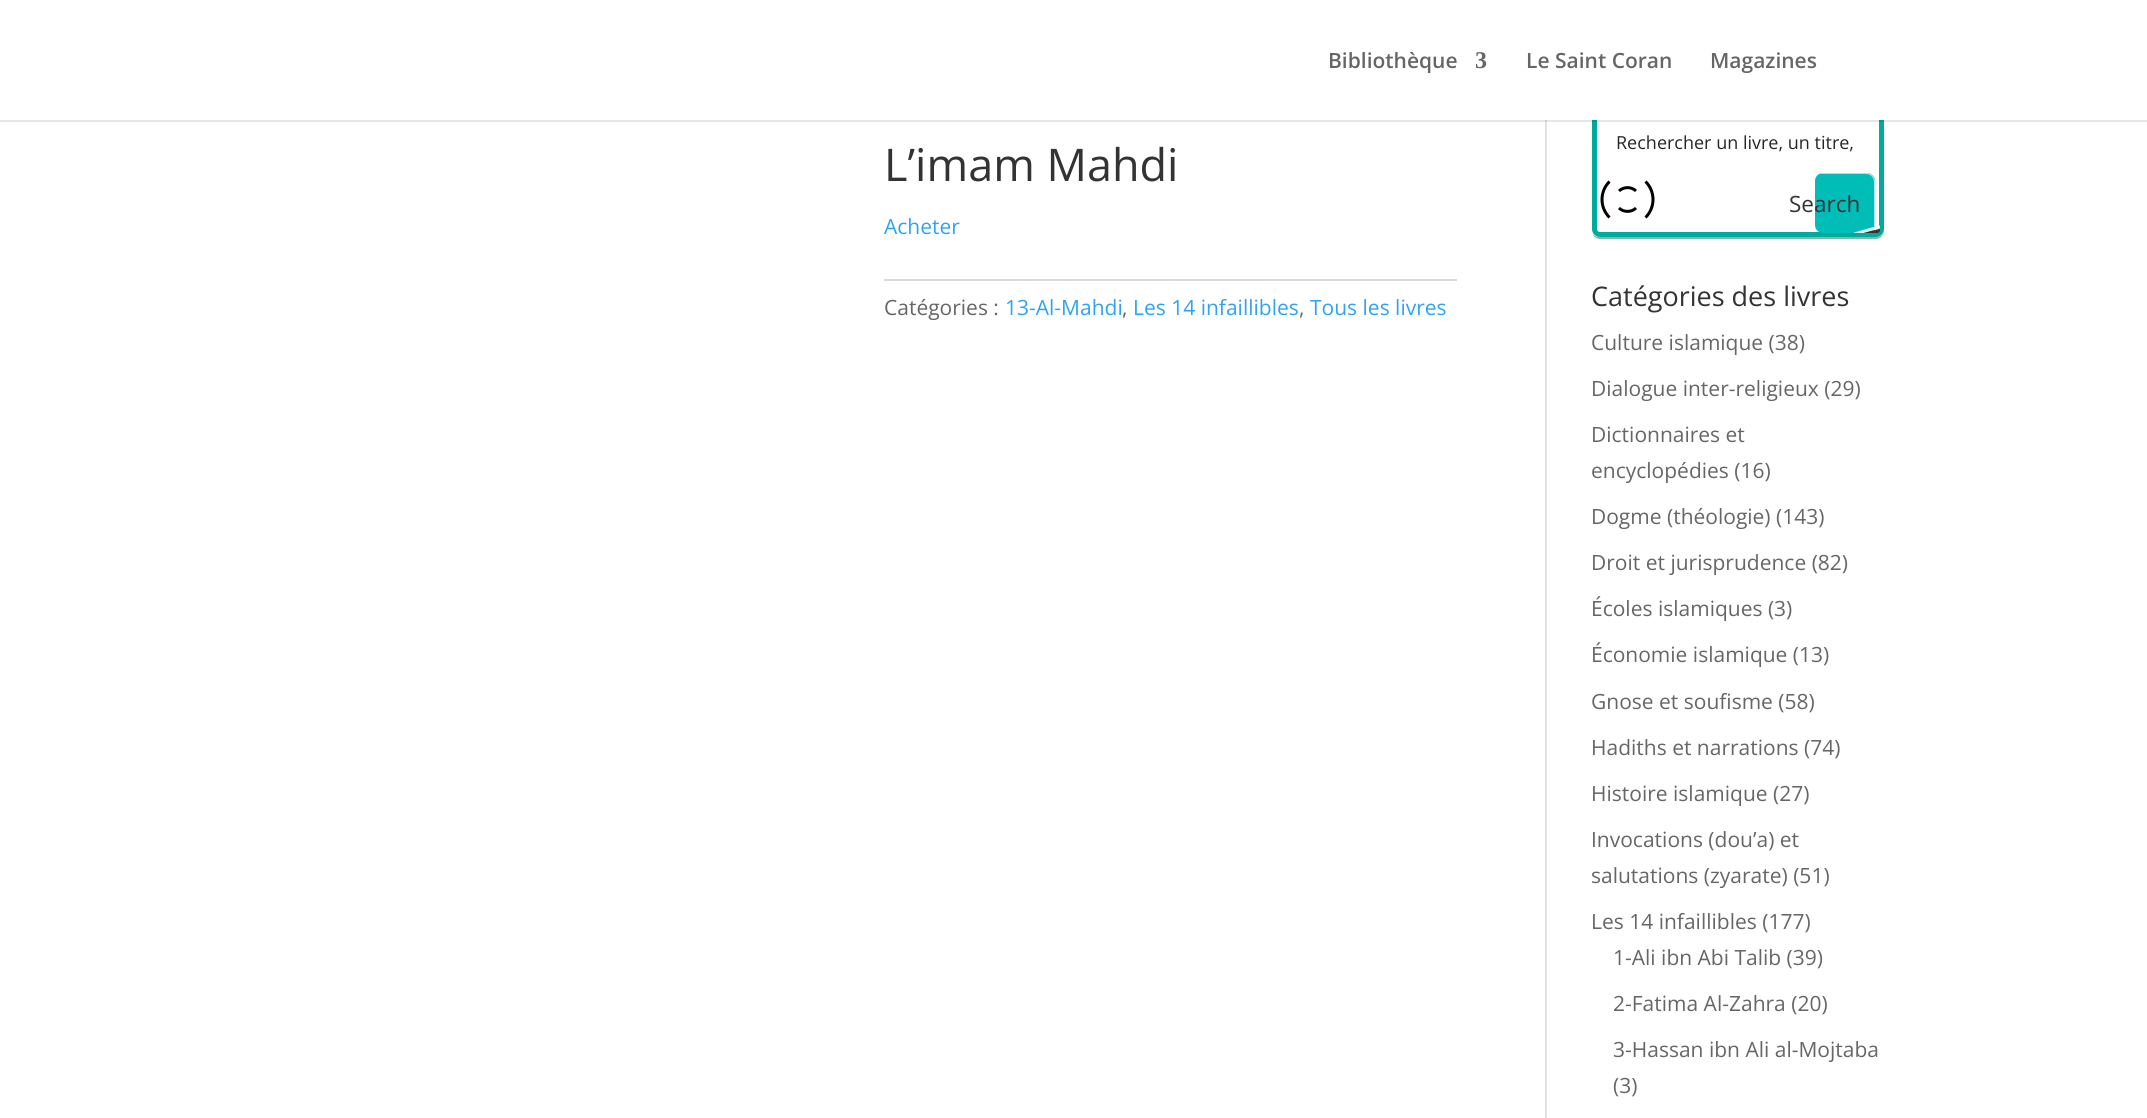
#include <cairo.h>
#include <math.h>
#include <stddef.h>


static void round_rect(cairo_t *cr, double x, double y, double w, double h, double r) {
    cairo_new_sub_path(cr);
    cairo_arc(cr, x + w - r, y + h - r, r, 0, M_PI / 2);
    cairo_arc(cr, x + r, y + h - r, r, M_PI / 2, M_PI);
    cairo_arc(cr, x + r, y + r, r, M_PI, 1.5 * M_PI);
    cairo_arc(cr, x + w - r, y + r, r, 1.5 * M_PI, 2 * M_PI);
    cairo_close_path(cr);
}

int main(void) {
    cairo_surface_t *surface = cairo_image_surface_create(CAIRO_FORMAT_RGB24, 2147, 1118);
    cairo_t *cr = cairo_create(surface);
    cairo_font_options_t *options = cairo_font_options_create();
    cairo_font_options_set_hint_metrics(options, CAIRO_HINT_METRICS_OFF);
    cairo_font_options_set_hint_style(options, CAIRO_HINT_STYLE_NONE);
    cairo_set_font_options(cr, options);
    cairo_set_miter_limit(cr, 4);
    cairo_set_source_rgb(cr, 1, 1, 1);
    cairo_paint(cr);
    cairo_set_source_rgb(cr, 0.886, 0.886, 0.886);
    cairo_rectangle(cr, 1545, 120, 2, 998);
    cairo_fill(cr);
    cairo_set_source_rgb(cr, 0.533, 0.718, 0.627);
    cairo_new_path(cr);
    cairo_move_to(cr, 1592, 233);
    cairo_curve_to(cr, 1593, 236, 1596, 239, 1600, 239);
    cairo_line_to(cr, 1876, 239);
    cairo_curve_to(cr, 1880, 239, 1884, 235, 1884, 231);
    cairo_line_to(cr, 1884, 230);
    cairo_curve_to(cr, 1884, 234, 1881, 237, 1876, 237);
    cairo_line_to(cr, 1599, 237);
    cairo_curve_to(cr, 1596, 237, 1593, 235, 1592, 233);
    cairo_close_path(cr);
    cairo_fill(cr);
    cairo_set_source_rgb(cr, 1, 1, 1);
    round_rect(cr, 1594.5, 104.5, 287, 130, 5.5);
    cairo_fill_preserve(cr);
    cairo_set_source_rgb(cr, 0, 0.667, 0.612);
    cairo_set_line_width(cr, 5);
    cairo_stroke(cr);
    cairo_set_source_rgba(cr, 0, 0, 0, 0.1);
    cairo_rectangle(cr, 0, 120, 2147, 2);
    cairo_fill(cr);
    cairo_set_source_rgb(cr, 1, 1, 1);
    cairo_rectangle(cr, 1592, 102, 292, 18);
    cairo_fill(cr);
    cairo_select_font_face(cr, "Open Sans SemiBold", CAIRO_FONT_SLANT_NORMAL, CAIRO_FONT_WEIGHT_NORMAL);
    cairo_set_font_size(cr, 21);
    cairo_set_source_rgb(cr, 0.4, 0.4, 0.4);
    cairo_move_to(cr, 1328, 68);
    cairo_show_text(cr, "Bibliothèque");
    cairo_select_font_face(cr, "Liberation Serif", CAIRO_FONT_SLANT_NORMAL, CAIRO_FONT_WEIGHT_BOLD);
    cairo_set_font_size(cr, 24);
    cairo_move_to(cr, 1475, 68);
    cairo_show_text(cr, "3");
    cairo_select_font_face(cr, "Open Sans SemiBold", CAIRO_FONT_SLANT_NORMAL, CAIRO_FONT_WEIGHT_NORMAL);
    cairo_set_font_size(cr, 21);
    cairo_move_to(cr, 1526, 68);
    cairo_show_text(cr, "Le Saint Coran");
    cairo_move_to(cr, 1710, 68);
    cairo_show_text(cr, "Magazines");
    cairo_select_font_face(cr, "Open Sans", CAIRO_FONT_SLANT_NORMAL, CAIRO_FONT_WEIGHT_NORMAL);
    cairo_set_font_size(cr, 45);
    cairo_set_source_rgb(cr, 0.2, 0.2, 0.2);
    cairo_move_to(cr, 884, 181);
    cairo_show_text(cr, "L’imam Mahdi");
    cairo_set_font_size(cr, 21);
    cairo_set_source_rgb(cr, 0.18, 0.639, 0.949);
    cairo_move_to(cr, 884, 234);
    cairo_show_text(cr, "Acheter");
    cairo_set_source_rgb(cr, 0.855, 0.855, 0.855);
    cairo_rectangle(cr, 884, 279, 573, 2);
    cairo_fill(cr);
    cairo_set_source_rgb(cr, 0.4, 0.4, 0.4);
    cairo_move_to(cr, 884, 315);
    cairo_show_text(cr, "Catégories :");
    cairo_set_source_rgb(cr, 0.18, 0.639, 0.949);
    cairo_move_to(cr, 1005, 315);
    cairo_show_text(cr, "13-Al-Mahdi");
    cairo_set_source_rgb(cr, 0.4, 0.4, 0.4);
    cairo_move_to(cr, 1122, 315);
    cairo_show_text(cr, ",");
    cairo_set_source_rgb(cr, 0.18, 0.639, 0.949);
    cairo_move_to(cr, 1133, 315);
    cairo_show_text(cr, "Les 14 infaillibles");
    cairo_set_source_rgb(cr, 0.4, 0.4, 0.4);
    cairo_move_to(cr, 1299, 315);
    cairo_show_text(cr, ",");
    cairo_set_source_rgb(cr, 0.18, 0.639, 0.949);
    cairo_move_to(cr, 1310, 315);
    cairo_show_text(cr, "Tous les livres");
    cairo_set_font_size(cr, 18);
    cairo_set_source_rgb(cr, 0.149, 0.149, 0.149);
    cairo_move_to(cr, 1616, 149);
    cairo_show_text(cr, "Rechercher un livre, un titre,");
    cairo_set_source_rgb(cr, 0, 0.741, 0.718);
    round_rect(cr, 1815, 173, 60, 60, 8);
    cairo_fill(cr);
    cairo_set_source_rgba(cr, 1, 1, 1, 0.64);
    cairo_new_path(cr);
    cairo_move_to(cr, 1821, 174);
    cairo_line_to(cr, 1866, 174);
    cairo_curve_to(cr, 1870, 174, 1874, 177, 1874, 182);
    cairo_line_to(cr, 1874, 226);
    cairo_curve_to(cr, 1874, 228, 1873, 230, 1872, 231);
    cairo_curve_to(cr, 1874, 229, 1875, 227, 1875, 225);
    cairo_line_to(cr, 1875, 181);
    cairo_curve_to(cr, 1875, 177, 1871, 173, 1867, 173);
    cairo_line_to(cr, 1823, 173);
    cairo_curve_to(cr, 1821, 173, 1820, 174, 1818, 174);
    cairo_close_path(cr);
    cairo_fill(cr);
    cairo_set_source_rgba(cr, 1, 1, 1, 0.9);
    cairo_new_path(cr);
    cairo_move_to(cr, 1880, 225.5);
    cairo_curve_to(cr, 1871, 227.5, 1862, 230, 1853, 233);
    cairo_line_to(cr, 1863.5, 233);
    cairo_line_to(cr, 1880, 228.5);
    cairo_close_path(cr);
    cairo_fill(cr);
    cairo_set_font_size(cr, 21);
    cairo_set_source_rgb(cr, 0.4, 0.4, 0.4);
    cairo_move_to(cr, 1591, 350);
    cairo_show_text(cr, "Culture islamique (38)");
    cairo_move_to(cr, 1591, 396);
    cairo_show_text(cr, "Dialogue inter-religieux (29)");
    cairo_move_to(cr, 1591, 442);
    cairo_show_text(cr, "Dictionnaires et");
    cairo_move_to(cr, 1591, 478);
    cairo_show_text(cr, "encyclopédies (16)");
    cairo_move_to(cr, 1591, 524);
    cairo_show_text(cr, "Dogme (théologie) (143)");
    cairo_move_to(cr, 1591, 570);
    cairo_show_text(cr, "Droit et jurisprudence (82)");
    cairo_move_to(cr, 1591, 616);
    cairo_show_text(cr, "Écoles islamiques (3)");
    cairo_move_to(cr, 1591, 662);
    cairo_show_text(cr, "Économie islamique (13)");
    cairo_move_to(cr, 1591, 709);
    cairo_show_text(cr, "Gnose et soufisme (58)");
    cairo_move_to(cr, 1591, 755);
    cairo_show_text(cr, "Hadiths et narrations (74)");
    cairo_move_to(cr, 1591, 801);
    cairo_show_text(cr, "Histoire islamique (27)");
    cairo_move_to(cr, 1591, 847);
    cairo_show_text(cr, "Invocations (dou’a) et");
    cairo_move_to(cr, 1591, 883);
    cairo_show_text(cr, "salutations (zyarate) (51)");
    cairo_move_to(cr, 1591, 929);
    cairo_show_text(cr, "Les 14 infaillibles (177)");
    cairo_move_to(cr, 1613, 965);
    cairo_show_text(cr, "1-Ali ibn Abi Talib (39)");
    cairo_save(cr);
    round_rect(cr, 1596, 107, 284, 126, 3);
    cairo_clip(cr);
    cairo_set_source_rgb(cr, 0.2, 0.2, 0.2);
    cairo_arc(cr, 1970, 602, 384, 0, 2 * M_PI);
    cairo_fill(cr);
    cairo_restore(cr);
    cairo_new_path(cr);
    cairo_move_to(cr, 1645.5, 181.5);
    cairo_curve_to(cr, 1655.5, 191.5, 1655.5, 207.5, 1645.5, 217.5);
    cairo_move_to(cr, 1609.5, 217.5);
    cairo_curve_to(cr, 1599.5, 207.5, 1599.5, 191.5, 1609.5, 181.5);
    cairo_move_to(cr, 1619, 191);
    cairo_curve_to(cr, 1623.5, 186.5, 1631.5, 186.5, 1636, 191);
    cairo_move_to(cr, 1636, 208);
    cairo_curve_to(cr, 1631.5, 212.5, 1623.5, 212.5, 1619, 208);
    cairo_set_source_rgb(cr, 0, 0, 0);
    cairo_set_line_width(cr, 3);
    cairo_stroke(cr);
    cairo_set_font_size(cr, 22.5);
    cairo_set_source_rgb(cr, 0.2, 0.2, 0.2);
    cairo_move_to(cr, 1789, 212);
    cairo_show_text(cr, "Search");
    cairo_set_font_size(cr, 27);
    cairo_move_to(cr, 1591, 306);
    cairo_show_text(cr, "Catégories des livres");
    cairo_set_font_size(cr, 21);
    cairo_set_source_rgb(cr, 0.4, 0.4, 0.4);
    cairo_move_to(cr, 1613, 1011);
    cairo_show_text(cr, "2-Fatima Al-Zahra (20)");
    cairo_move_to(cr, 1613, 1057);
    cairo_show_text(cr, "3-Hassan ibn Ali al-Mojtaba");
    cairo_move_to(cr, 1613, 1093);
    cairo_show_text(cr, "(3)");
    cairo_surface_write_to_png(surface, "page.png");
    cairo_font_options_destroy(options);
    cairo_destroy(cr);
    cairo_surface_destroy(surface);
    return 0;
}
